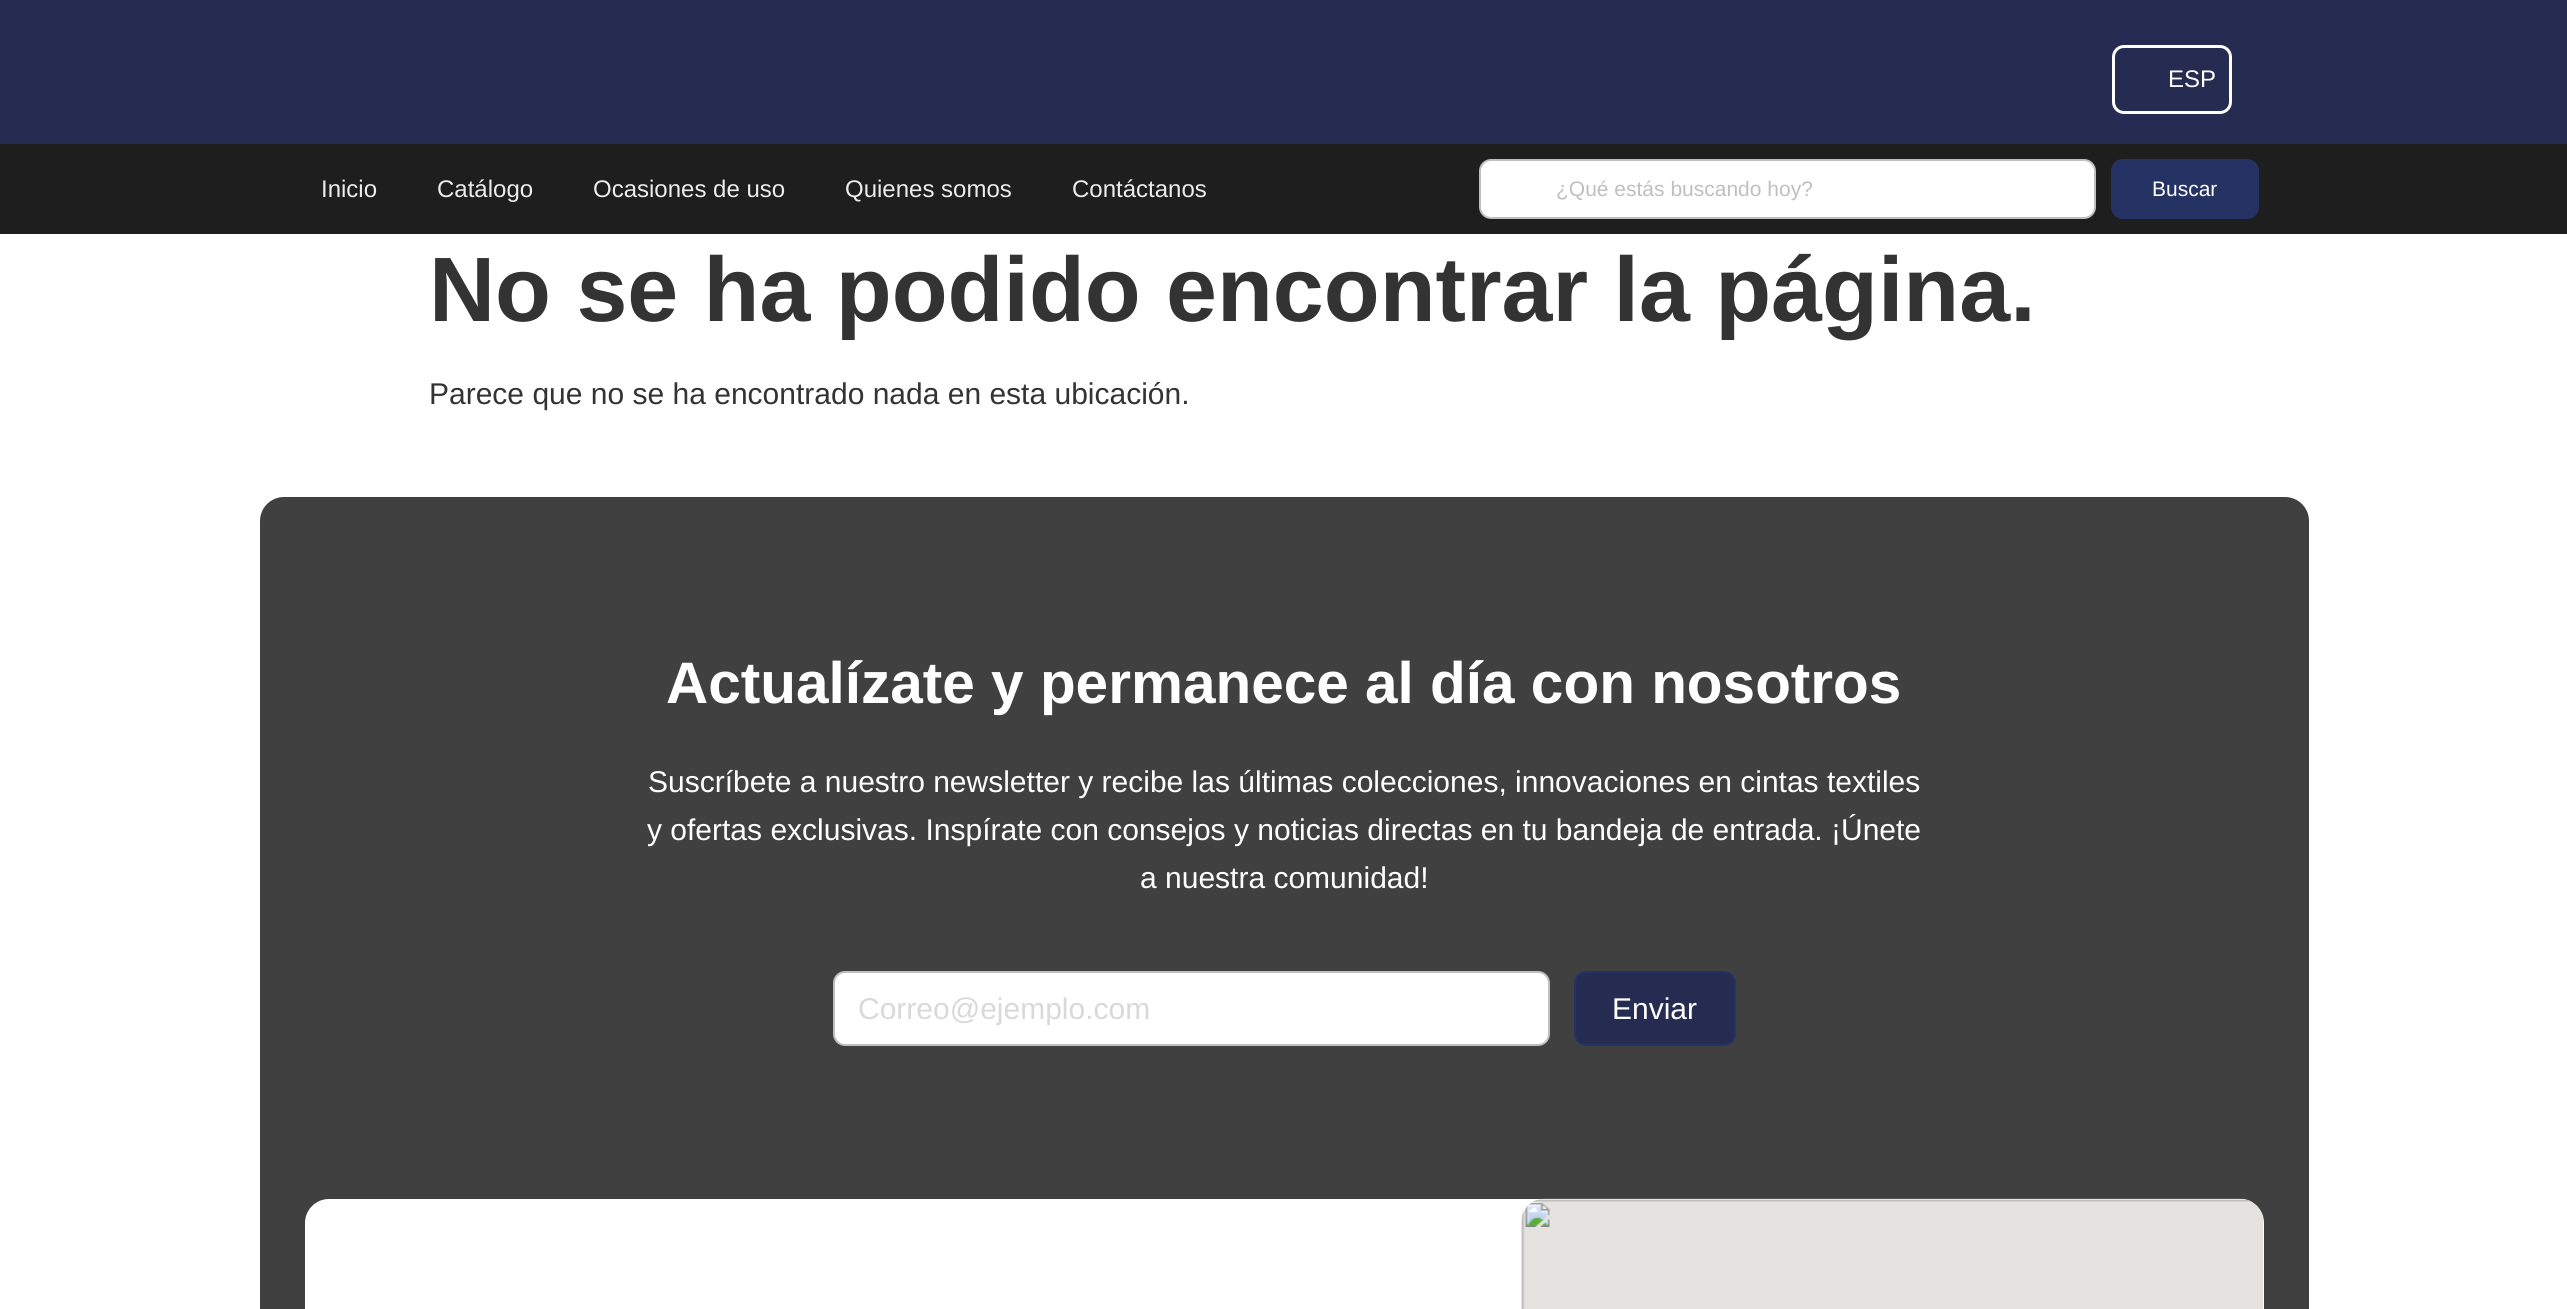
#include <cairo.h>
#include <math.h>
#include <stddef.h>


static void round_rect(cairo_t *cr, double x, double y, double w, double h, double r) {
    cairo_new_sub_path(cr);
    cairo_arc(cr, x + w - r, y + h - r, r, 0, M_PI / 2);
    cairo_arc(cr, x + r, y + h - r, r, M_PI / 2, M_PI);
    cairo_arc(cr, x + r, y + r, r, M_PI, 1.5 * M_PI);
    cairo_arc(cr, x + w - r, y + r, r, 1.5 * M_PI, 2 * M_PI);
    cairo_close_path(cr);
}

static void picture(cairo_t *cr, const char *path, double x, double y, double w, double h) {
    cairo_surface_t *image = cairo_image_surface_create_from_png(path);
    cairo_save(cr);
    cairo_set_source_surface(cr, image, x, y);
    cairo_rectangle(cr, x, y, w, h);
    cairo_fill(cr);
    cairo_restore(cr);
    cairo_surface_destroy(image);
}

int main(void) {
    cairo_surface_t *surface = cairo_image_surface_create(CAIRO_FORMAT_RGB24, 2567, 1309);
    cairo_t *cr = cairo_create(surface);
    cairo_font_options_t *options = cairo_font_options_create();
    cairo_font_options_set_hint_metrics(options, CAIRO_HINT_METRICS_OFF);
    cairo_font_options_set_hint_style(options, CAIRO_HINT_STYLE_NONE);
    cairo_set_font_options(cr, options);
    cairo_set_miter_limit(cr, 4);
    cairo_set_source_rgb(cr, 1, 1, 1);
    cairo_paint(cr);
    cairo_set_source_rgb(cr, 0.149, 0.173, 0.318);
    cairo_rectangle(cr, 0, 0, 2567, 144);
    cairo_fill(cr);
    round_rect(cr, 2113.5, 46.5, 117, 66, 10.5);
    cairo_set_source_rgb(cr, 1, 1, 1);
    cairo_set_line_width(cr, 3);
    cairo_stroke(cr);
    cairo_select_font_face(cr, "Liberation Sans", CAIRO_FONT_SLANT_NORMAL, CAIRO_FONT_WEIGHT_NORMAL);
    cairo_set_font_size(cr, 24);
    cairo_move_to(cr, 2168, 87);
    cairo_show_text(cr, "ESP");
    cairo_set_source_rgb(cr, 0.118, 0.118, 0.118);
    cairo_rectangle(cr, 0, 144, 2567, 90);
    cairo_fill(cr);
    cairo_set_source_rgb(cr, 0.922, 0.922, 0.922);
    cairo_move_to(cr, 321, 197);
    cairo_show_text(cr, "Inicio");
    cairo_move_to(cr, 437, 197);
    cairo_show_text(cr, "Catálogo");
    cairo_move_to(cr, 593, 197);
    cairo_show_text(cr, "Ocasiones de uso");
    cairo_move_to(cr, 845, 197);
    cairo_show_text(cr, "Quienes somos");
    cairo_move_to(cr, 1072, 197);
    cairo_show_text(cr, "Contáctanos");
    cairo_set_source_rgb(cr, 1, 1, 1);
    round_rect(cr, 1480, 160, 615, 58, 11);
    cairo_fill_preserve(cr);
    cairo_set_source_rgb(cr, 0.749, 0.749, 0.749);
    cairo_set_line_width(cr, 2);
    cairo_stroke(cr);
    cairo_set_font_size(cr, 21);
    cairo_move_to(cr, 1556, 196);
    cairo_show_text(cr, "¿Qué estás buscando hoy?");
    cairo_set_source_rgb(cr, 0.145, 0.196, 0.392);
    round_rect(cr, 2112, 160, 146, 58, 11);
    cairo_fill_preserve(cr);
    cairo_stroke(cr);
    cairo_set_source_rgb(cr, 1, 1, 1);
    cairo_move_to(cr, 2152, 196);
    cairo_show_text(cr, "Buscar");
    cairo_select_font_face(cr, "Liberation Sans", CAIRO_FONT_SLANT_NORMAL, CAIRO_FONT_WEIGHT_BOLD);
    cairo_set_font_size(cr, 91.5);
    cairo_set_source_rgb(cr, 0.2, 0.2, 0.2);
    cairo_move_to(cr, 429, 321);
    cairo_show_text(cr, "No se ha podido encontrar la página.");
    cairo_select_font_face(cr, "Liberation Sans", CAIRO_FONT_SLANT_NORMAL, CAIRO_FONT_WEIGHT_NORMAL);
    cairo_set_font_size(cr, 30);
    cairo_move_to(cr, 429, 404);
    cairo_show_text(cr, "Parece que no se ha encontrado nada en esta ubicación.");
    cairo_set_source_rgb(cr, 0.251, 0.251, 0.251);
    round_rect(cr, 260, 497, 2049, 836, 24);
    cairo_fill(cr);
    cairo_select_font_face(cr, "Liberation Sans", CAIRO_FONT_SLANT_NORMAL, CAIRO_FONT_WEIGHT_BOLD);
    cairo_set_font_size(cr, 58.5);
    cairo_set_source_rgb(cr, 1, 1, 1);
    cairo_move_to(cr, 666, 703);
    cairo_show_text(cr, "Actualízate y permanece al día con nosotros");
    cairo_select_font_face(cr, "Liberation Sans", CAIRO_FONT_SLANT_NORMAL, CAIRO_FONT_WEIGHT_NORMAL);
    cairo_set_font_size(cr, 30);
    cairo_move_to(cr, 648, 792);
    cairo_show_text(cr, "Suscríbete a nuestro newsletter y recibe las últimas colecciones, innovaciones en cintas textiles");
    cairo_move_to(cr, 647, 840);
    cairo_show_text(cr, "y ofertas exclusivas. Inspírate con consejos y noticias directas en tu bandeja de entrada. ¡Únete");
    cairo_move_to(cr, 1140, 888);
    cairo_show_text(cr, "a nuestra comunidad!");
    round_rect(cr, 834, 972, 715, 73, 11);
    cairo_fill_preserve(cr);
    cairo_set_source_rgb(cr, 0.749, 0.749, 0.749);
    cairo_stroke(cr);
    cairo_set_source_rgb(cr, 0.851, 0.851, 0.851);
    cairo_move_to(cr, 858, 1019);
    cairo_show_text(cr, "Correo@ejemplo.com");
    cairo_set_source_rgb(cr, 0.149, 0.173, 0.318);
    round_rect(cr, 1575, 972, 160, 73, 11);
    cairo_fill_preserve(cr);
    cairo_set_source_rgb(cr, 0.145, 0.196, 0.392);
    cairo_stroke(cr);
    cairo_set_source_rgb(cr, 1, 1, 1);
    cairo_move_to(cr, 1612, 1019);
    cairo_show_text(cr, "Enviar");
    round_rect(cr, 305, 1199, 1959, 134, 24);
    cairo_fill(cr);
    picture(cr, "img1.png", 1521, 1198, 743, 111);
    cairo_surface_write_to_png(surface, "page.png");
    cairo_font_options_destroy(options);
    cairo_destroy(cr);
    cairo_surface_destroy(surface);
    return 0;
}
